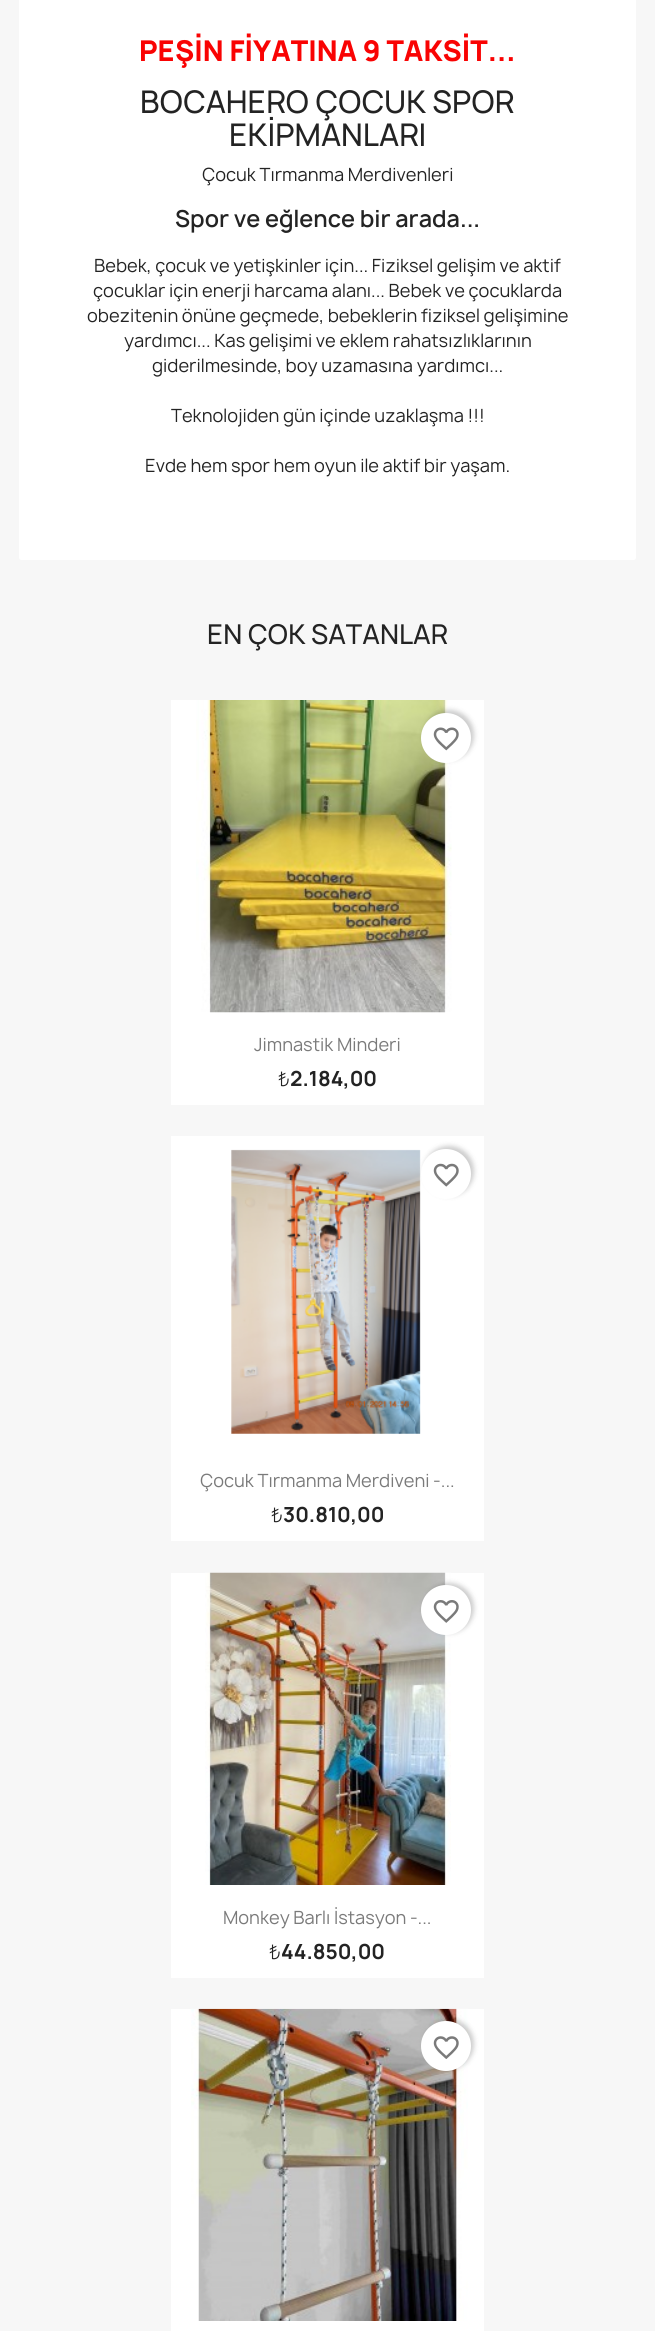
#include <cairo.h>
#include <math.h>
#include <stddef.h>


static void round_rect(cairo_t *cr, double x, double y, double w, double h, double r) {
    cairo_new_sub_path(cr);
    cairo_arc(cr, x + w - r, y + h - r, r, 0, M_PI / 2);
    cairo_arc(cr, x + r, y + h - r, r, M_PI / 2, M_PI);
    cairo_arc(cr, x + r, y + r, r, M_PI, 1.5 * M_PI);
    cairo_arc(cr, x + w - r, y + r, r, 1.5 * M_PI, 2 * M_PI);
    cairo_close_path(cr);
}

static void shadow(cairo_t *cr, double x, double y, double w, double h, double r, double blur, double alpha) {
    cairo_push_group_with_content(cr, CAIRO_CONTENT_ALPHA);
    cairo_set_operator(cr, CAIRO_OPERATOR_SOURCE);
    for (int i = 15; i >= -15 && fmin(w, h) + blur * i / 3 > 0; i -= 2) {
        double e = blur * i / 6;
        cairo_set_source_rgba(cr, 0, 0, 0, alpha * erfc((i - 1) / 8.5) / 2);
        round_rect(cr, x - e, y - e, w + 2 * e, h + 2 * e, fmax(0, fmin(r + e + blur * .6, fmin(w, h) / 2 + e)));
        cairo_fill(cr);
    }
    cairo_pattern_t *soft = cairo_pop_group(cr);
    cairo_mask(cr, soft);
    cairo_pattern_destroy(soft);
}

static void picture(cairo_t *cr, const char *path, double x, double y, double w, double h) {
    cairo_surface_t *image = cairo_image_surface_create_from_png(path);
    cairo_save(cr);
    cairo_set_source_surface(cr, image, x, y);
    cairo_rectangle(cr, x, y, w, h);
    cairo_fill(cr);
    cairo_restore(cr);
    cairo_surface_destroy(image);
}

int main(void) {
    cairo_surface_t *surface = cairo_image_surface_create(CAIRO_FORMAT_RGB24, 655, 2331);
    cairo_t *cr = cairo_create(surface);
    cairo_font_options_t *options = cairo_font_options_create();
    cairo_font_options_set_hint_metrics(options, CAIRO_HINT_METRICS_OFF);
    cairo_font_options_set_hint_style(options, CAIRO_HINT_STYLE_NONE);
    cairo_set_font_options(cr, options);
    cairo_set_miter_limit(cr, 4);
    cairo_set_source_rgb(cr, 0.965, 0.965, 0.965);
    cairo_paint(cr);
    cairo_set_source_rgb(cr, 1, 1, 1);
    round_rect(cr, 19, -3, 617, 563, 2.5);
    cairo_fill(cr);
    cairo_select_font_face(cr, "Manrope ExtraBold", CAIRO_FONT_SLANT_NORMAL, CAIRO_FONT_WEIGHT_NORMAL);
    cairo_set_font_size(cr, 27.5);
    cairo_set_source_rgb(cr, 0.976, 0.012, 0.012);
    cairo_move_to(cr, 139, 61);
    cairo_show_text(cr, "PEŞİN FİYATINA 9 TAKSİT...");
    cairo_select_font_face(cr, "Manrope Medium", CAIRO_FONT_SLANT_NORMAL, CAIRO_FONT_WEIGHT_NORMAL);
    cairo_set_font_size(cr, 30);
    cairo_set_source_rgb(cr, 0.137, 0.137, 0.137);
    cairo_move_to(cr, 140, 113);
    cairo_show_text(cr, "BOCAHERO ÇOCUK SPOR");
    cairo_move_to(cr, 229, 146);
    cairo_show_text(cr, "EKİPMANLARI");
    cairo_select_font_face(cr, "Manrope", CAIRO_FONT_SLANT_NORMAL, CAIRO_FONT_WEIGHT_NORMAL);
    cairo_set_font_size(cr, 17.5);
    cairo_move_to(cr, 202, 181);
    cairo_show_text(cr, "Çocuk Tırmanma Merdivenleri");
    cairo_select_font_face(cr, "Manrope SemiBold", CAIRO_FONT_SLANT_NORMAL, CAIRO_FONT_WEIGHT_NORMAL);
    cairo_set_font_size(cr, 22.5);
    cairo_move_to(cr, 175, 227);
    cairo_show_text(cr, "Spor ve eğlence bir arada...");
    cairo_select_font_face(cr, "Manrope", CAIRO_FONT_SLANT_NORMAL, CAIRO_FONT_WEIGHT_NORMAL);
    cairo_set_font_size(cr, 17.5);
    cairo_move_to(cr, 94, 272);
    cairo_show_text(cr, "Bebek, çocuk ve yetişkinler için... Fiziksel gelişim ve aktif");
    cairo_move_to(cr, 93, 297);
    cairo_show_text(cr, "çocuklar için enerji harcama alanı... Bebek ve çocuklarda");
    cairo_move_to(cr, 87, 322);
    cairo_show_text(cr, "obezitenin önüne geçmede, bebeklerin fiziksel gelişimine");
    cairo_move_to(cr, 124, 347);
    cairo_show_text(cr, "yardımcı... Kas gelişimi ve eklem rahatsızlıklarının");
    cairo_move_to(cr, 152, 372);
    cairo_show_text(cr, "giderilmesinde, boy uzamasına yardımcı...");
    cairo_move_to(cr, 171, 422);
    cairo_show_text(cr, "Teknolojiden gün içinde uzaklaşma !!!");
    cairo_move_to(cr, 145, 472);
    cairo_show_text(cr, "Evde hem spor hem oyun ile aktif bir yaşam.");
    cairo_select_font_face(cr, "Manrope Medium", CAIRO_FONT_SLANT_NORMAL, CAIRO_FONT_WEIGHT_NORMAL);
    cairo_set_font_size(cr, 26.25);
    cairo_move_to(cr, 207, 644);
    cairo_show_text(cr, "EN ÇOK SATANLAR");
    cairo_set_source_rgb(cr, 1, 1, 1);
    cairo_rectangle(cr, 171, 700, 313, 405);
    cairo_fill(cr);
    picture(cr, "img1.png", 196, 700, 256, 313);
    cairo_set_source_rgb(cr, 0, 0, 0);
    shadow(cr, 424, 710, 50, 50, 25, 2.5, 0.2);
    cairo_set_source_rgb(cr, 1, 1, 1);
    cairo_arc(cr, 446, 738, 25, 0, 2 * M_PI);
    cairo_fill(cr);
    picture(cr, "img2.png", 433, 727, 26, 24);
    cairo_select_font_face(cr, "Manrope", CAIRO_FONT_SLANT_NORMAL, CAIRO_FONT_WEIGHT_NORMAL);
    cairo_set_font_size(cr, 17.5);
    cairo_set_source_rgb(cr, 0.478, 0.478, 0.478);
    cairo_move_to(cr, 254, 1051);
    cairo_show_text(cr, "Jimnastik Minderi");
    cairo_select_font_face(cr, "Manrope Light", CAIRO_FONT_SLANT_NORMAL, CAIRO_FONT_WEIGHT_NORMAL);
    cairo_set_font_size(cr, 20);
    cairo_set_source_rgb(cr, 0.137, 0.137, 0.137);
    cairo_move_to(cr, 278, 1086);
    cairo_show_text(cr, "₺");
    cairo_select_font_face(cr, "Manrope", CAIRO_FONT_SLANT_NORMAL, CAIRO_FONT_WEIGHT_BOLD);
    cairo_move_to(cr, 290, 1086);
    cairo_show_text(cr, "2.184,00");
    cairo_set_source_rgb(cr, 1, 1, 1);
    cairo_rectangle(cr, 171, 1136, 313, 405);
    cairo_fill(cr);
    picture(cr, "img3.png", 231, 1149, 190, 285);
    cairo_set_source_rgb(cr, 0, 0, 0);
    shadow(cr, 424, 1146, 50, 50, 25, 2.5, 0.2);
    cairo_set_source_rgb(cr, 1, 1, 1);
    cairo_arc(cr, 446, 1174, 25, 0, 2 * M_PI);
    cairo_fill(cr);
    picture(cr, "img4.png", 433, 1163, 26, 24);
    cairo_select_font_face(cr, "Manrope", CAIRO_FONT_SLANT_NORMAL, CAIRO_FONT_WEIGHT_NORMAL);
    cairo_set_font_size(cr, 17.5);
    cairo_set_source_rgb(cr, 0.478, 0.478, 0.478);
    cairo_move_to(cr, 200, 1487);
    cairo_show_text(cr, "Çocuk Tırmanma Merdiveni -...");
    cairo_select_font_face(cr, "Manrope Light", CAIRO_FONT_SLANT_NORMAL, CAIRO_FONT_WEIGHT_NORMAL);
    cairo_set_font_size(cr, 20);
    cairo_set_source_rgb(cr, 0.137, 0.137, 0.137);
    cairo_move_to(cr, 271, 1522);
    cairo_show_text(cr, "₺");
    cairo_select_font_face(cr, "Manrope", CAIRO_FONT_SLANT_NORMAL, CAIRO_FONT_WEIGHT_BOLD);
    cairo_move_to(cr, 283, 1522);
    cairo_show_text(cr, "30.810,00");
    cairo_set_source_rgb(cr, 1, 1, 1);
    cairo_rectangle(cr, 171, 1573, 313, 405);
    cairo_fill(cr);
    picture(cr, "img5.png", 205, 1572, 246, 313);
    cairo_set_source_rgb(cr, 0, 0, 0);
    shadow(cr, 424, 1583, 50, 50, 25, 2.5, 0.2);
    cairo_set_source_rgb(cr, 1, 1, 1);
    cairo_arc(cr, 446, 1610, 25, 0, 2 * M_PI);
    cairo_fill(cr);
    picture(cr, "img6.png", 433, 1600, 26, 23);
    cairo_select_font_face(cr, "Manrope", CAIRO_FONT_SLANT_NORMAL, CAIRO_FONT_WEIGHT_NORMAL);
    cairo_set_font_size(cr, 17.5);
    cairo_set_source_rgb(cr, 0.478, 0.478, 0.478);
    cairo_move_to(cr, 223, 1924);
    cairo_show_text(cr, "Monkey Barlı İstasyon -...");
    cairo_select_font_face(cr, "Manrope Light", CAIRO_FONT_SLANT_NORMAL, CAIRO_FONT_WEIGHT_NORMAL);
    cairo_set_font_size(cr, 20);
    cairo_set_source_rgb(cr, 0.137, 0.137, 0.137);
    cairo_move_to(cr, 269, 1959);
    cairo_show_text(cr, "₺");
    cairo_select_font_face(cr, "Manrope", CAIRO_FONT_SLANT_NORMAL, CAIRO_FONT_WEIGHT_BOLD);
    cairo_move_to(cr, 281, 1959);
    cairo_show_text(cr, "44.850,00");
    cairo_set_source_rgb(cr, 1, 1, 1);
    cairo_rectangle(cr, 171, 2009, 313, 322);
    cairo_fill(cr);
    picture(cr, "img7.png", 191, 2008, 277, 313);
    cairo_set_source_rgb(cr, 0, 0, 0);
    shadow(cr, 424, 2019, 50, 50, 25, 2.5, 0.2);
    cairo_set_source_rgb(cr, 1, 1, 1);
    cairo_arc(cr, 446, 2046, 25, 0, 2 * M_PI);
    cairo_fill(cr);
    picture(cr, "img8.png", 433, 2036, 26, 23);
    cairo_surface_write_to_png(surface, "page.png");
    cairo_font_options_destroy(options);
    cairo_destroy(cr);
    cairo_surface_destroy(surface);
    return 0;
}
